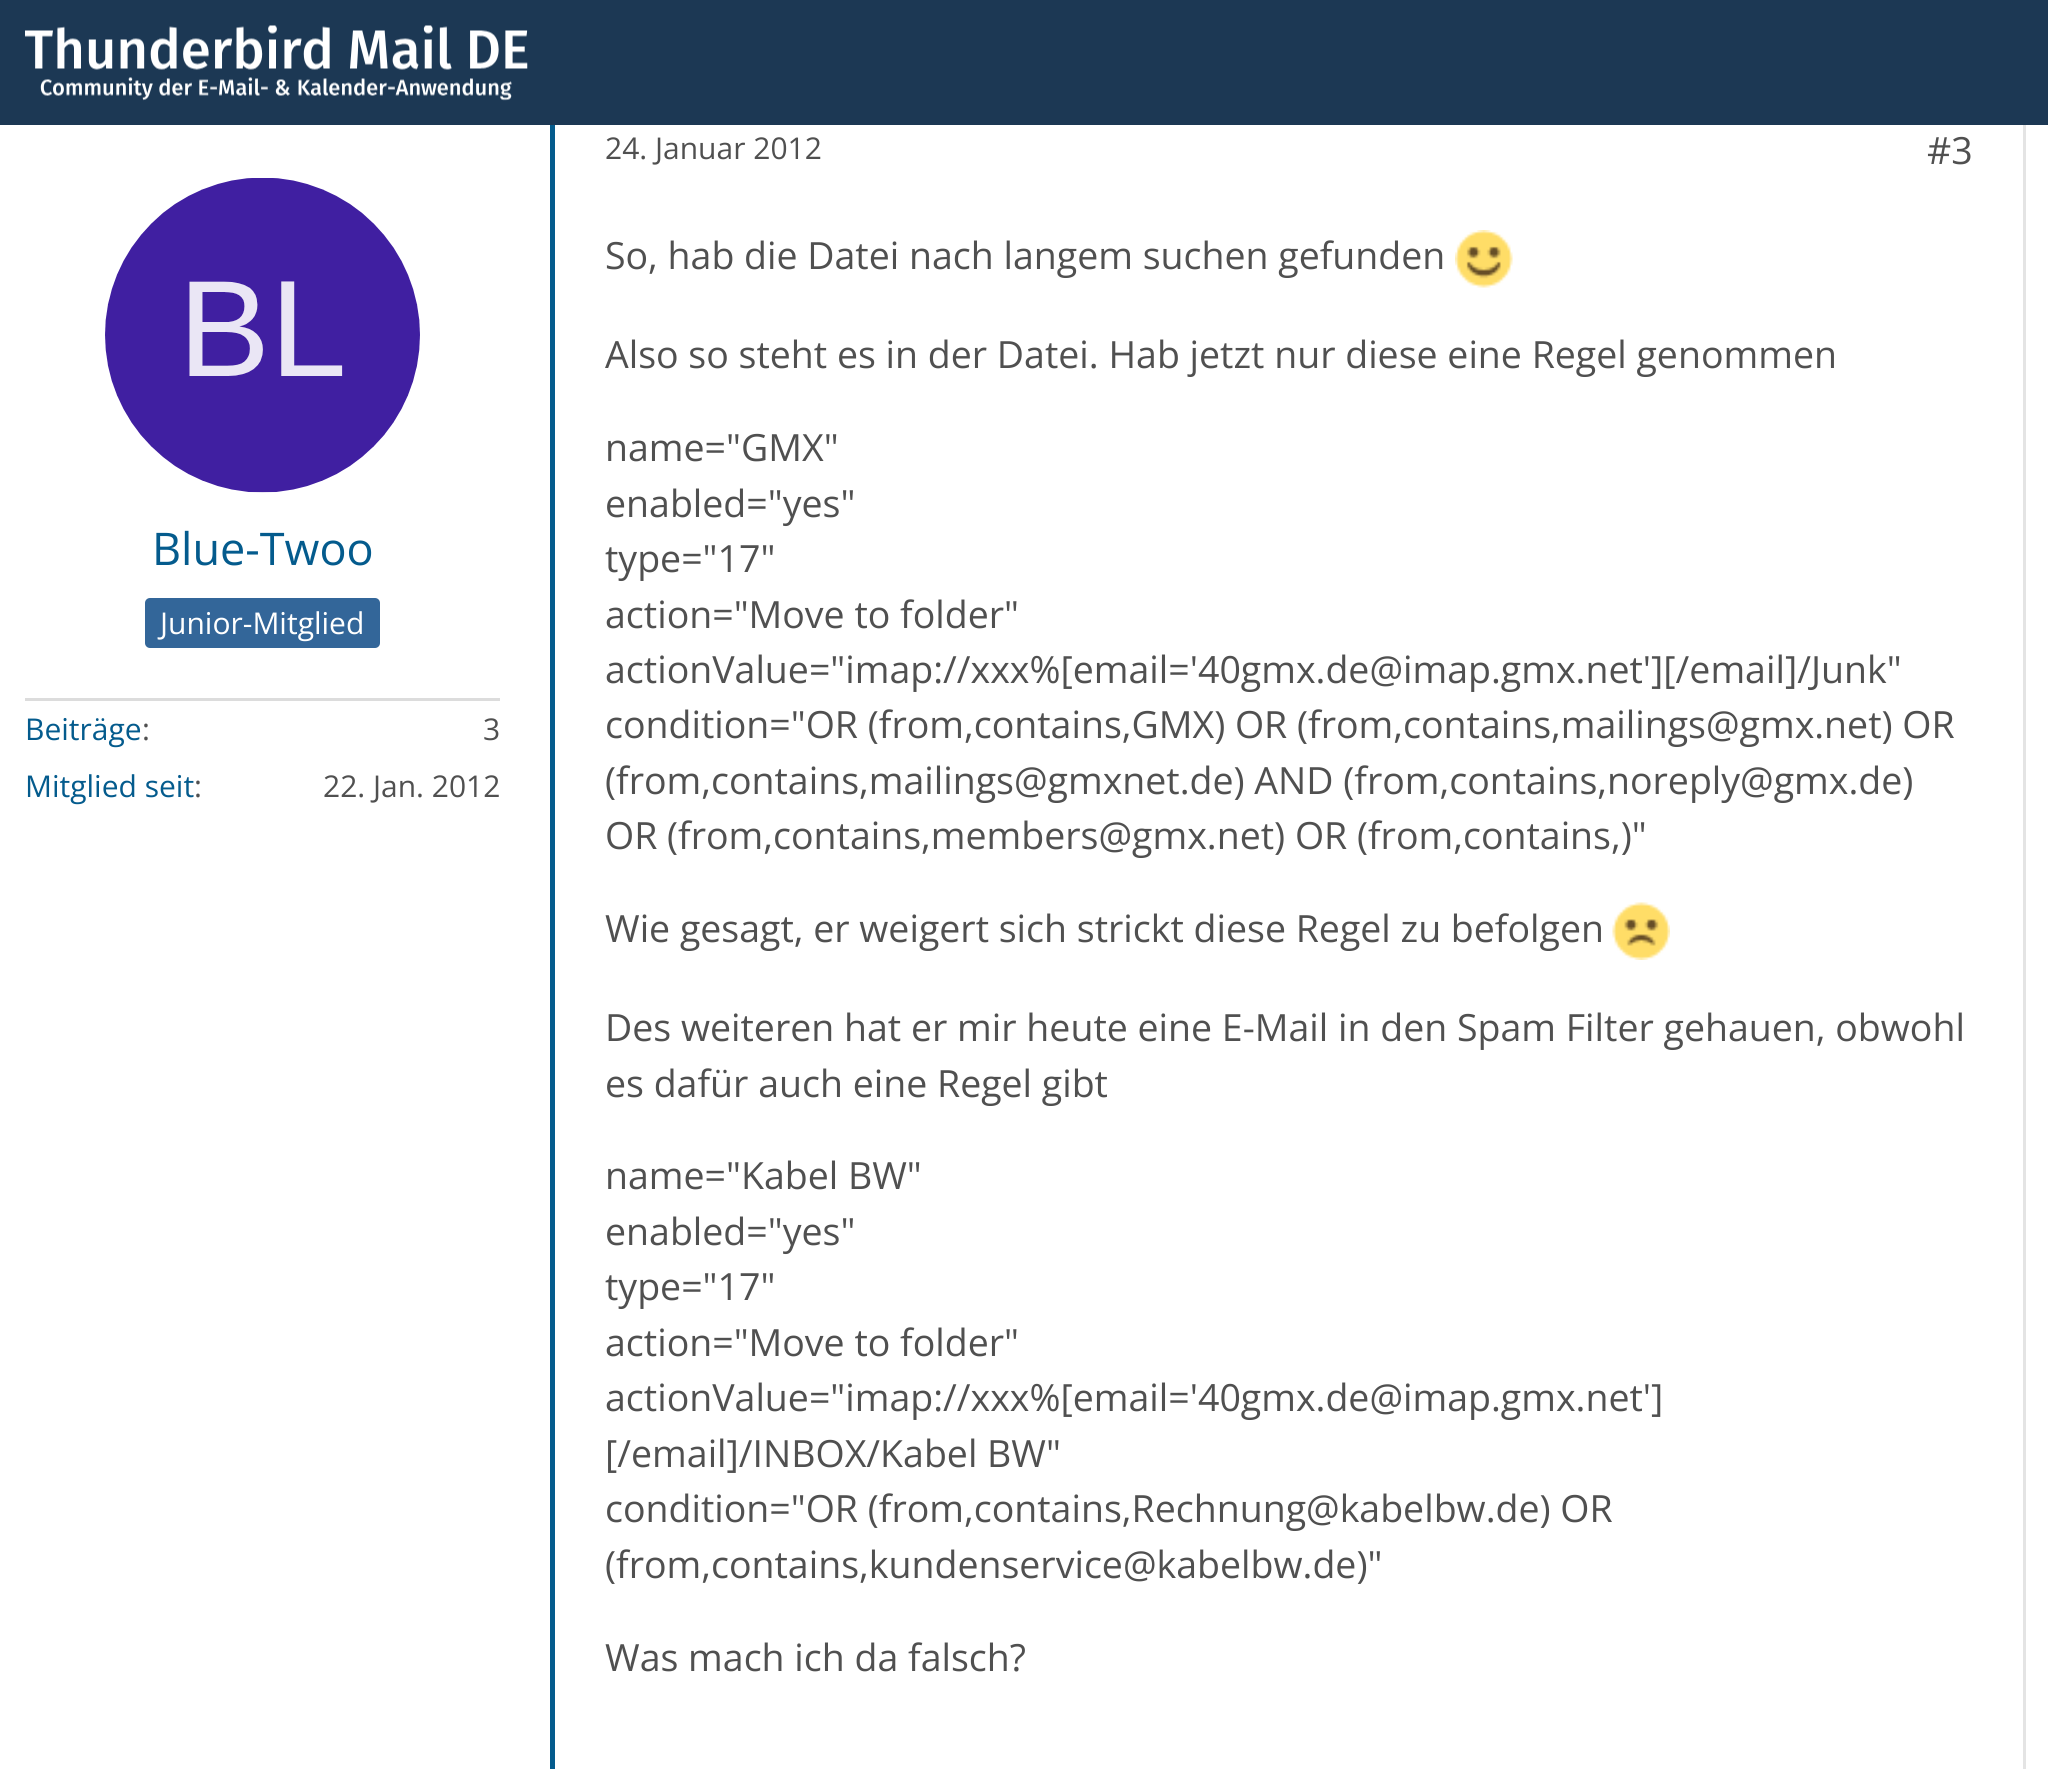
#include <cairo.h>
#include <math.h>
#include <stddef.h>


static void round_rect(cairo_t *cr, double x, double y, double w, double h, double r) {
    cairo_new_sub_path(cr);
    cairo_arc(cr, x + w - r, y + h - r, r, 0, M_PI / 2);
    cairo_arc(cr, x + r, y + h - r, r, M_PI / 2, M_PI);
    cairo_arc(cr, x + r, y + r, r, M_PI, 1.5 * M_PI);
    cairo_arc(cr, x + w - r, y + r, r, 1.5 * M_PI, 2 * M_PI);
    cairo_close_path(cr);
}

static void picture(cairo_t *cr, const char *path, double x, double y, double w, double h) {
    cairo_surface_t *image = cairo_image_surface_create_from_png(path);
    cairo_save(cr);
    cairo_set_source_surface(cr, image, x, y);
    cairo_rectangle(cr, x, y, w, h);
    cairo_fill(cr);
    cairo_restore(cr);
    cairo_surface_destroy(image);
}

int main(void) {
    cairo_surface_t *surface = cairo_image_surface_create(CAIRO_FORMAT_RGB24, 2048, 1769);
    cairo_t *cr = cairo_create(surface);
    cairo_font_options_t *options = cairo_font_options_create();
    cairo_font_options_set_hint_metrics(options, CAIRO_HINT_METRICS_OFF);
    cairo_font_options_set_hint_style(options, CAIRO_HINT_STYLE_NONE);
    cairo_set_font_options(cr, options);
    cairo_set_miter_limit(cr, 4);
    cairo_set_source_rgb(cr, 1, 1, 1);
    cairo_paint(cr);
    cairo_set_source_rgb(cr, 0.016, 0.357, 0.553);
    cairo_new_path(cr);
    cairo_move_to(cr, 550, 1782);
    cairo_line_to(cr, 550, 70);
    cairo_line_to(cr, 555, 72);
    cairo_line_to(cr, 555, 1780);
    cairo_close_path(cr);
    cairo_fill(cr);
    cairo_set_source_rgb(cr, 0.11, 0.22, 0.329);
    cairo_rectangle(cr, 0, 0, 2048, 125);
    cairo_fill(cr);
    picture(cr, "img1.png", 25, 25, 503, 76);
    picture(cr, "img2.png", 105, 178, 315, 315);
    cairo_select_font_face(cr, "Open Sans", CAIRO_FONT_SLANT_NORMAL, CAIRO_FONT_WEIGHT_NORMAL);
    cairo_set_font_size(cr, 45);
    cairo_set_source_rgb(cr, 0.016, 0.357, 0.553);
    cairo_move_to(cr, 152, 565);
    cairo_show_text(cr, "Blue-Twoo");
    cairo_set_source_rgb(cr, 0.2, 0.4, 0.6);
    round_rect(cr, 145, 598, 235, 50, 5);
    cairo_fill(cr);
    cairo_set_font_size(cr, 30);
    cairo_set_source_rgb(cr, 1, 1, 1);
    cairo_move_to(cr, 160, 634);
    cairo_show_text(cr, "Junior-Mitglied");
    cairo_set_source_rgb(cr, 0.863, 0.863, 0.863);
    cairo_rectangle(cr, 25, 698, 475, 3);
    cairo_fill(cr);
    cairo_set_source_rgb(cr, 0.016, 0.357, 0.553);
    cairo_move_to(cr, 25, 740);
    cairo_show_text(cr, "Beiträge");
    cairo_set_source_rgb(cr, 0.314, 0.314, 0.314);
    cairo_move_to(cr, 142, 740);
    cairo_show_text(cr, ":");
    cairo_move_to(cr, 483, 740);
    cairo_show_text(cr, "3");
    cairo_set_source_rgb(cr, 0.016, 0.357, 0.553);
    cairo_move_to(cr, 25, 797);
    cairo_show_text(cr, "Mitglied seit");
    cairo_set_source_rgb(cr, 0.314, 0.314, 0.314);
    cairo_move_to(cr, 194, 797);
    cairo_show_text(cr, ":");
    cairo_move_to(cr, 323, 797);
    cairo_show_text(cr, "22. Jan. 2012");
    cairo_set_source_rgb(cr, 0.894, 0.894, 0.894);
    cairo_rectangle(cr, 2023, 125, 3, 1644);
    cairo_fill(cr);
    cairo_set_source_rgb(cr, 0.314, 0.314, 0.314);
    cairo_move_to(cr, 605, 159);
    cairo_show_text(cr, "24. Januar 2012");
    cairo_set_font_size(cr, 37.5);
    cairo_move_to(cr, 1927, 164);
    cairo_show_text(cr, "#3");
    cairo_move_to(cr, 605, 269);
    cairo_show_text(cr, "So, hab die Datei nach langem suchen gefunden");
    picture(cr, "img3.png", 1455, 230, 58, 58);
    cairo_move_to(cr, 605, 368);
    cairo_show_text(cr, "Also so steht es in der Datei. Hab jetzt nur diese eine Regel genommen");
    cairo_move_to(cr, 605, 461);
    cairo_show_text(cr, "name=\"GMX\"");
    cairo_move_to(cr, 605, 517);
    cairo_show_text(cr, "enabled=\"yes\"");
    cairo_move_to(cr, 605, 572);
    cairo_show_text(cr, "type=\"17\"");
    cairo_move_to(cr, 605, 628);
    cairo_show_text(cr, "action=\"Move to folder\"");
    cairo_move_to(cr, 605, 683);
    cairo_show_text(cr, "actionValue=\"imap://xxx%[email='40gmx.de@imap.gmx.net'][/email]/Junk\"");
    cairo_move_to(cr, 605, 738);
    cairo_show_text(cr, "condition=\"OR (from,contains,GMX) OR (from,contains,mailings@gmx.net) OR");
    cairo_move_to(cr, 605, 794);
    cairo_show_text(cr, "(from,contains,mailings@gmxnet.de) AND (from,contains,noreply@gmx.de)");
    cairo_move_to(cr, 605, 849);
    cairo_show_text(cr, "OR (from,contains,members@gmx.net) OR (from,contains,)\"");
    cairo_move_to(cr, 605, 942);
    cairo_show_text(cr, "Wie gesagt, er weigert sich strickt diese Regel zu befolgen");
    picture(cr, "img4.png", 1612, 902, 58, 58);
    cairo_move_to(cr, 605, 1041);
    cairo_show_text(cr, "Des weiteren hat er mir heute eine E-Mail in den Spam Filter gehauen, obwohl");
    cairo_move_to(cr, 605, 1097);
    cairo_show_text(cr, "es dafür auch eine Regel gibt");
    cairo_move_to(cr, 605, 1189);
    cairo_show_text(cr, "name=\"Kabel BW\"");
    cairo_move_to(cr, 605, 1245);
    cairo_show_text(cr, "enabled=\"yes\"");
    cairo_move_to(cr, 605, 1300);
    cairo_show_text(cr, "type=\"17\"");
    cairo_move_to(cr, 605, 1356);
    cairo_show_text(cr, "action=\"Move to folder\"");
    cairo_move_to(cr, 605, 1411);
    cairo_show_text(cr, "actionValue=\"imap://xxx%[email='40gmx.de@imap.gmx.net']");
    cairo_move_to(cr, 605, 1467);
    cairo_show_text(cr, "[/email]/INBOX/Kabel BW\"");
    cairo_move_to(cr, 605, 1522);
    cairo_show_text(cr, "condition=\"OR (from,contains,Rechnung@kabelbw.de) OR");
    cairo_move_to(cr, 605, 1578);
    cairo_show_text(cr, "(from,contains,kundenservice@kabelbw.de)\"");
    cairo_move_to(cr, 605, 1671);
    cairo_show_text(cr, "Was mach ich da falsch?");
    cairo_surface_write_to_png(surface, "page.png");
    cairo_font_options_destroy(options);
    cairo_destroy(cr);
    cairo_surface_destroy(surface);
    return 0;
}
